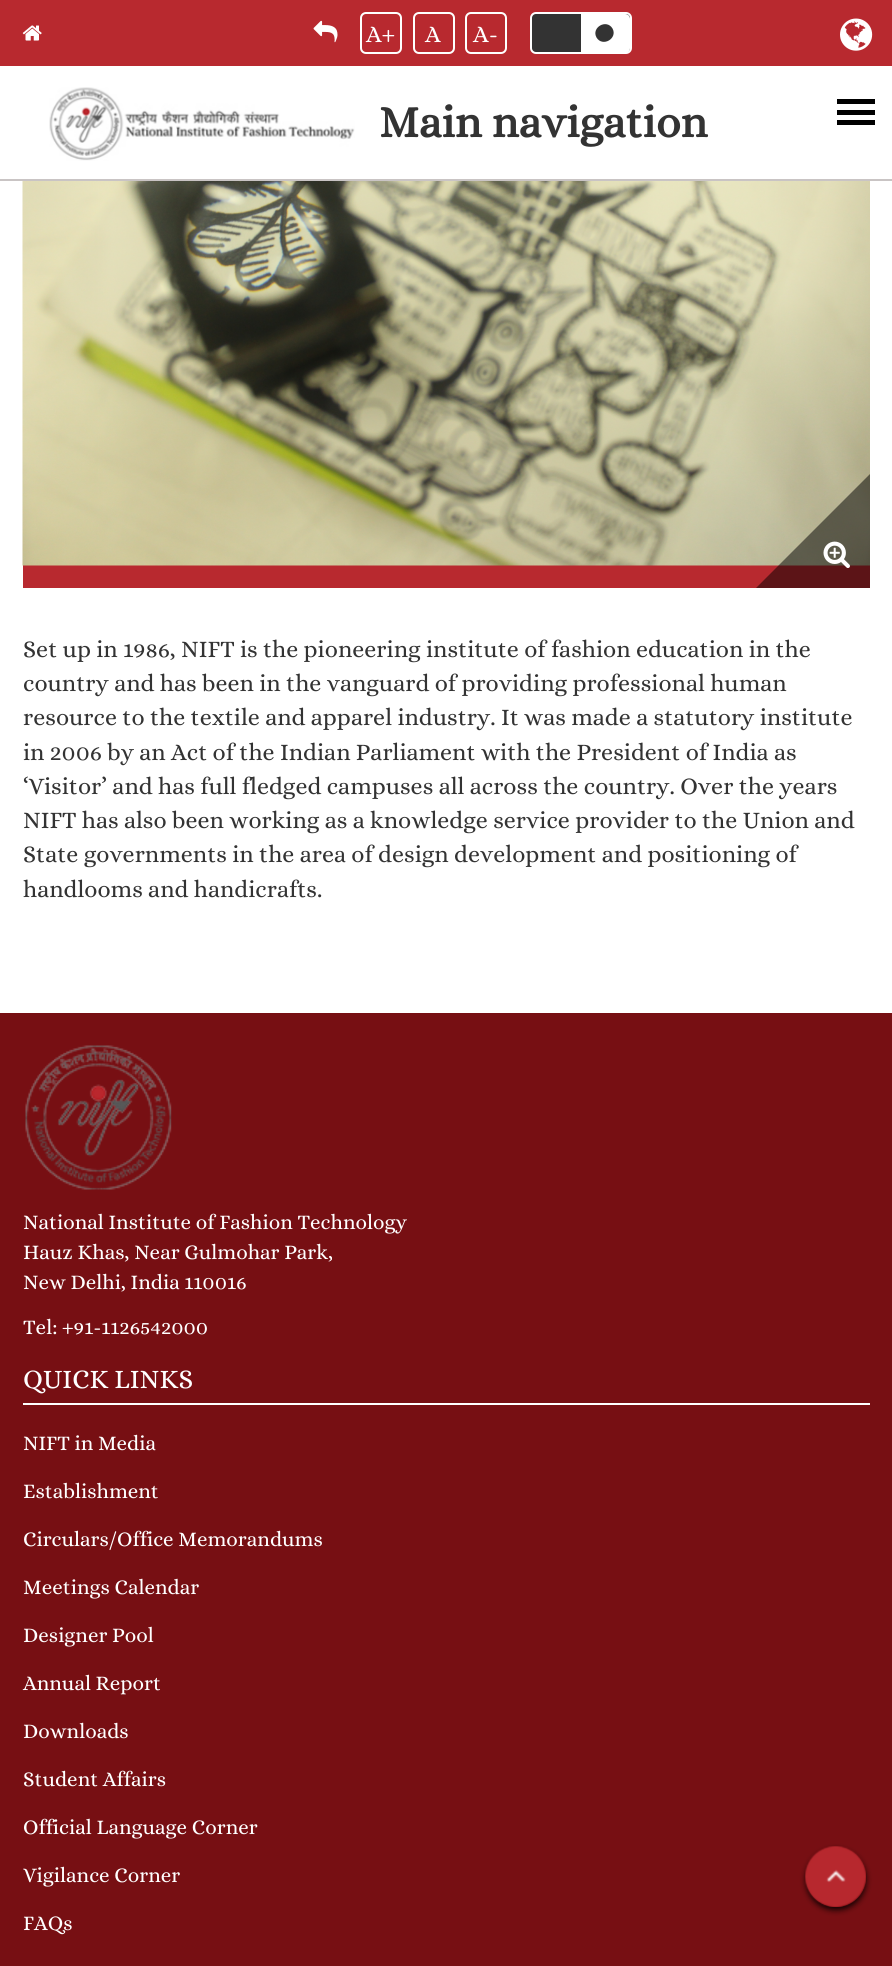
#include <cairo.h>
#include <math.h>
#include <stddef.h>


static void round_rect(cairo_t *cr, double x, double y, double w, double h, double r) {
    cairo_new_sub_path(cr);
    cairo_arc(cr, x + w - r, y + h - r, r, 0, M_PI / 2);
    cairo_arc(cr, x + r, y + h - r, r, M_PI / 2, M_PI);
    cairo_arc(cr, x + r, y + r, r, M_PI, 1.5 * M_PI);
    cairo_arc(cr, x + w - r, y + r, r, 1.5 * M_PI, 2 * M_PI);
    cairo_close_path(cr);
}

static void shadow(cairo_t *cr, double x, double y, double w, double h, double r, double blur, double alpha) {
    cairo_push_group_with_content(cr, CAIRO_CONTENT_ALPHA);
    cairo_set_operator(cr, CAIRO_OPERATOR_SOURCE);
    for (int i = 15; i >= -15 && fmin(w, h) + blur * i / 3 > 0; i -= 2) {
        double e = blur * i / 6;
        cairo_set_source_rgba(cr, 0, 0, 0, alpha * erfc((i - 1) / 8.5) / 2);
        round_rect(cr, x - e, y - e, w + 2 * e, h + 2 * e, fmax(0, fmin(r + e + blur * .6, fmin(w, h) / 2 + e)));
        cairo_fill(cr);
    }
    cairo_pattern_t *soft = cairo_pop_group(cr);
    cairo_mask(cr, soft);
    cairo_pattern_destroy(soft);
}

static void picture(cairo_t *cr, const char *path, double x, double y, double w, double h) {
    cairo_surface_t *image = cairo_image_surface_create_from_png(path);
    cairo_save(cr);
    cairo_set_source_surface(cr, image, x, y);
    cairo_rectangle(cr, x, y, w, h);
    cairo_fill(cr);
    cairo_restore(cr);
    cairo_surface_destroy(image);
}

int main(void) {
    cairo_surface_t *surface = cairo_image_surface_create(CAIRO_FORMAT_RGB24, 892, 1966);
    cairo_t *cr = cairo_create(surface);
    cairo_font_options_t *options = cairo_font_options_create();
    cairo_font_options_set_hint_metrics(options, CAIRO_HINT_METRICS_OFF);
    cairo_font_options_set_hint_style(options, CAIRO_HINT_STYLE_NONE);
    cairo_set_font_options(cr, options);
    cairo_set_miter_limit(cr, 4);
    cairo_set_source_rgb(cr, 1, 1, 1);
    cairo_paint(cr);
    cairo_set_source_rgb(cr, 0.722, 0.161, 0.184);
    cairo_rectangle(cr, 0, 0, 892, 66);
    cairo_fill(cr);
    picture(cr, "img1.png", 22, 25, 20, 16);
    picture(cr, "img2.png", 313, 20, 25, 23);
    round_rect(cr, 361, 13, 40, 40, 5);
    cairo_set_source_rgb(cr, 1, 1, 1);
    cairo_stroke(cr);
    cairo_select_font_face(cr, "Alice", CAIRO_FONT_SLANT_NORMAL, CAIRO_FONT_WEIGHT_NORMAL);
    cairo_set_font_size(cr, 24);
    cairo_move_to(cr, 366, 42);
    cairo_show_text(cr, "A+");
    round_rect(cr, 414, 13, 40, 40, 5);
    cairo_stroke(cr);
    cairo_move_to(cr, 425, 42);
    cairo_show_text(cr, "A");
    round_rect(cr, 466, 13, 40, 40, 5);
    cairo_stroke(cr);
    cairo_move_to(cr, 473, 42);
    cairo_show_text(cr, "A-");
    cairo_set_source_rgb(cr, 0.2, 0.2, 0.2);
    round_rect(cr, 531, 13, 100, 40, 5);
    cairo_fill_preserve(cr);
    cairo_set_source_rgb(cr, 1, 1, 1);
    cairo_stroke(cr);
    cairo_new_path(cr);
    cairo_move_to(cr, 581, 14);
    cairo_line_to(cr, 625, 14);
    cairo_curve_to(cr, 628, 14, 630, 16, 630, 19);
    cairo_line_to(cr, 630, 48);
    cairo_curve_to(cr, 630, 51, 628, 53, 625, 53);
    cairo_line_to(cr, 581, 53);
    cairo_close_path(cr);
    cairo_fill(cr);
    cairo_set_source_rgb(cr, 0.2, 0.2, 0.2);
    cairo_new_path(cr);
    cairo_move_to(cr, 612.5, 28.5);
    cairo_curve_to(cr, 618, 38.5, 602.5, 47.5, 596.5, 37.5);
    cairo_curve_to(cr, 591, 27.5, 606.5, 18.5, 612.5, 28.5);
    cairo_close_path(cr);
    cairo_fill(cr);
    picture(cr, "img3.png", 840, 18, 33, 33);
    cairo_set_source_rgb(cr, 0.788, 0.769, 0.769);
    cairo_rectangle(cr, 0, 179, 892, 2);
    cairo_fill(cr);
    picture(cr, "img4.png", 49, 87, 306, 74);
    cairo_select_font_face(cr, "Alice", CAIRO_FONT_SLANT_NORMAL, CAIRO_FONT_WEIGHT_BOLD);
    cairo_set_font_size(cr, 45);
    cairo_set_source_rgb(cr, 0.2, 0.2, 0.2);
    cairo_move_to(cr, 379, 137);
    cairo_show_text(cr, "Main navigation");
    cairo_set_source_rgb(cr, 0, 0, 0);
    cairo_rectangle(cr, 837, 110, 38, 5);
    cairo_fill(cr);
    cairo_rectangle(cr, 837, 99, 38, 5);
    cairo_fill(cr);
    cairo_rectangle(cr, 837, 120, 38, 5);
    cairo_fill(cr);
    cairo_set_source_rgb(cr, 0.722, 0.161, 0.184);
    cairo_rectangle(cr, 23, 565, 847, 23);
    cairo_fill(cr);
    picture(cr, "img5.png", 22, 181, 848, 385);
    cairo_set_source_rgba(cr, 0, 0, 0, 0.5);
    cairo_new_path(cr);
    cairo_move_to(cr, 870, 588);
    cairo_line_to(cr, 756, 588);
    cairo_line_to(cr, 870, 474);
    cairo_close_path(cr);
    cairo_fill(cr);
    picture(cr, "img6.png", 823, 541, 27, 27);
    cairo_select_font_face(cr, "Alice", CAIRO_FONT_SLANT_NORMAL, CAIRO_FONT_WEIGHT_NORMAL);
    cairo_set_font_size(cr, 24);
    cairo_set_source_rgb(cr, 0.2, 0.2, 0.2);
    cairo_move_to(cr, 23, 657);
    cairo_show_text(cr, "Set up in 1986, NIFT is the pioneering institute of fashion education in the");
    cairo_move_to(cr, 23, 691);
    cairo_show_text(cr, "country and has been in the vanguard of providing professional human");
    cairo_move_to(cr, 23, 725);
    cairo_show_text(cr, "resource to the textile and apparel industry. It was made a statutory institute");
    cairo_move_to(cr, 23, 760);
    cairo_show_text(cr, "in 2006 by an Act of the Indian Parliament with the President of India as");
    cairo_move_to(cr, 23, 794);
    cairo_show_text(cr, "‘Visitor’ and has full fledged campuses all across the country. Over the years");
    cairo_move_to(cr, 23, 828);
    cairo_show_text(cr, "NIFT has also been working as a knowledge service provider to the Union and");
    cairo_move_to(cr, 23, 862);
    cairo_show_text(cr, "State governments in the area of design development and positioning of");
    cairo_move_to(cr, 23, 897);
    cairo_show_text(cr, "handlooms and handicrafts.");
    cairo_set_source_rgb(cr, 0.467, 0.059, 0.075);
    cairo_rectangle(cr, 0, 1013, 892, 953);
    cairo_fill(cr);
    picture(cr, "img7.png", 25, 1045, 147, 145);
    cairo_set_font_size(cr, 21);
    cairo_set_source_rgb(cr, 1, 1, 1);
    cairo_move_to(cr, 23, 1229);
    cairo_show_text(cr, "National Institute of Fashion Technology");
    cairo_move_to(cr, 23, 1259);
    cairo_show_text(cr, "Hauz Khas, Near Gulmohar Park,");
    cairo_move_to(cr, 23, 1289);
    cairo_show_text(cr, "New Delhi, India 110016");
    cairo_move_to(cr, 23, 1334);
    cairo_show_text(cr, "Tel: +91-1126542000");
    cairo_rectangle(cr, 23, 1403, 847, 2);
    cairo_fill(cr);
    cairo_set_font_size(cr, 27);
    cairo_move_to(cr, 23, 1388);
    cairo_show_text(cr, "QUICK LINKS");
    cairo_set_font_size(cr, 21);
    cairo_move_to(cr, 23, 1450);
    cairo_show_text(cr, "NIFT in Media");
    cairo_move_to(cr, 23, 1498);
    cairo_show_text(cr, "Establishment");
    cairo_move_to(cr, 23, 1546);
    cairo_show_text(cr, "Circulars/Office Memorandums");
    cairo_move_to(cr, 23, 1594);
    cairo_show_text(cr, "Meetings Calendar");
    cairo_move_to(cr, 23, 1642);
    cairo_show_text(cr, "Designer Pool");
    cairo_move_to(cr, 23, 1690);
    cairo_show_text(cr, "Annual Report");
    cairo_move_to(cr, 23, 1738);
    cairo_show_text(cr, "Downloads");
    cairo_move_to(cr, 23, 1786);
    cairo_show_text(cr, "Student Affairs");
    cairo_move_to(cr, 23, 1834);
    cairo_show_text(cr, "Official Language Corner");
    cairo_move_to(cr, 23, 1882);
    cairo_show_text(cr, "Vigilance Corner");
    cairo_move_to(cr, 23, 1930);
    cairo_show_text(cr, "FAQs");
    cairo_save(cr);
    cairo_set_fill_rule(cr, CAIRO_FILL_RULE_EVEN_ODD);
    cairo_new_path(cr);
    cairo_move_to(cr, 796, 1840);
    cairo_line_to(cr, 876, 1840);
    cairo_line_to(cr, 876, 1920);
    cairo_line_to(cr, 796, 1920);
    cairo_close_path(cr);
    cairo_move_to(cr, 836, 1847);
    cairo_curve_to(cr, 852.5, 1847, 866, 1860.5, 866, 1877);
    cairo_curve_to(cr, 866, 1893.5, 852.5, 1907, 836, 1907);
    cairo_curve_to(cr, 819.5, 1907, 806, 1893.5, 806, 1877);
    cairo_curve_to(cr, 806, 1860.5, 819.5, 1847, 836, 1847);
    cairo_close_path(cr);
    cairo_clip(cr);
    cairo_set_source_rgb(cr, 0.047, 0.008, 0.008);
    shadow(cr, 806, 1850, 60, 60, 30, 3, 1);
    cairo_restore(cr);
    picture(cr, "img8.png", 805, 1846, 61, 61);
    picture(cr, "img9.png", 805, 1846, 61, 61);
    cairo_surface_write_to_png(surface, "page.png");
    cairo_font_options_destroy(options);
    cairo_destroy(cr);
    cairo_surface_destroy(surface);
    return 0;
}
